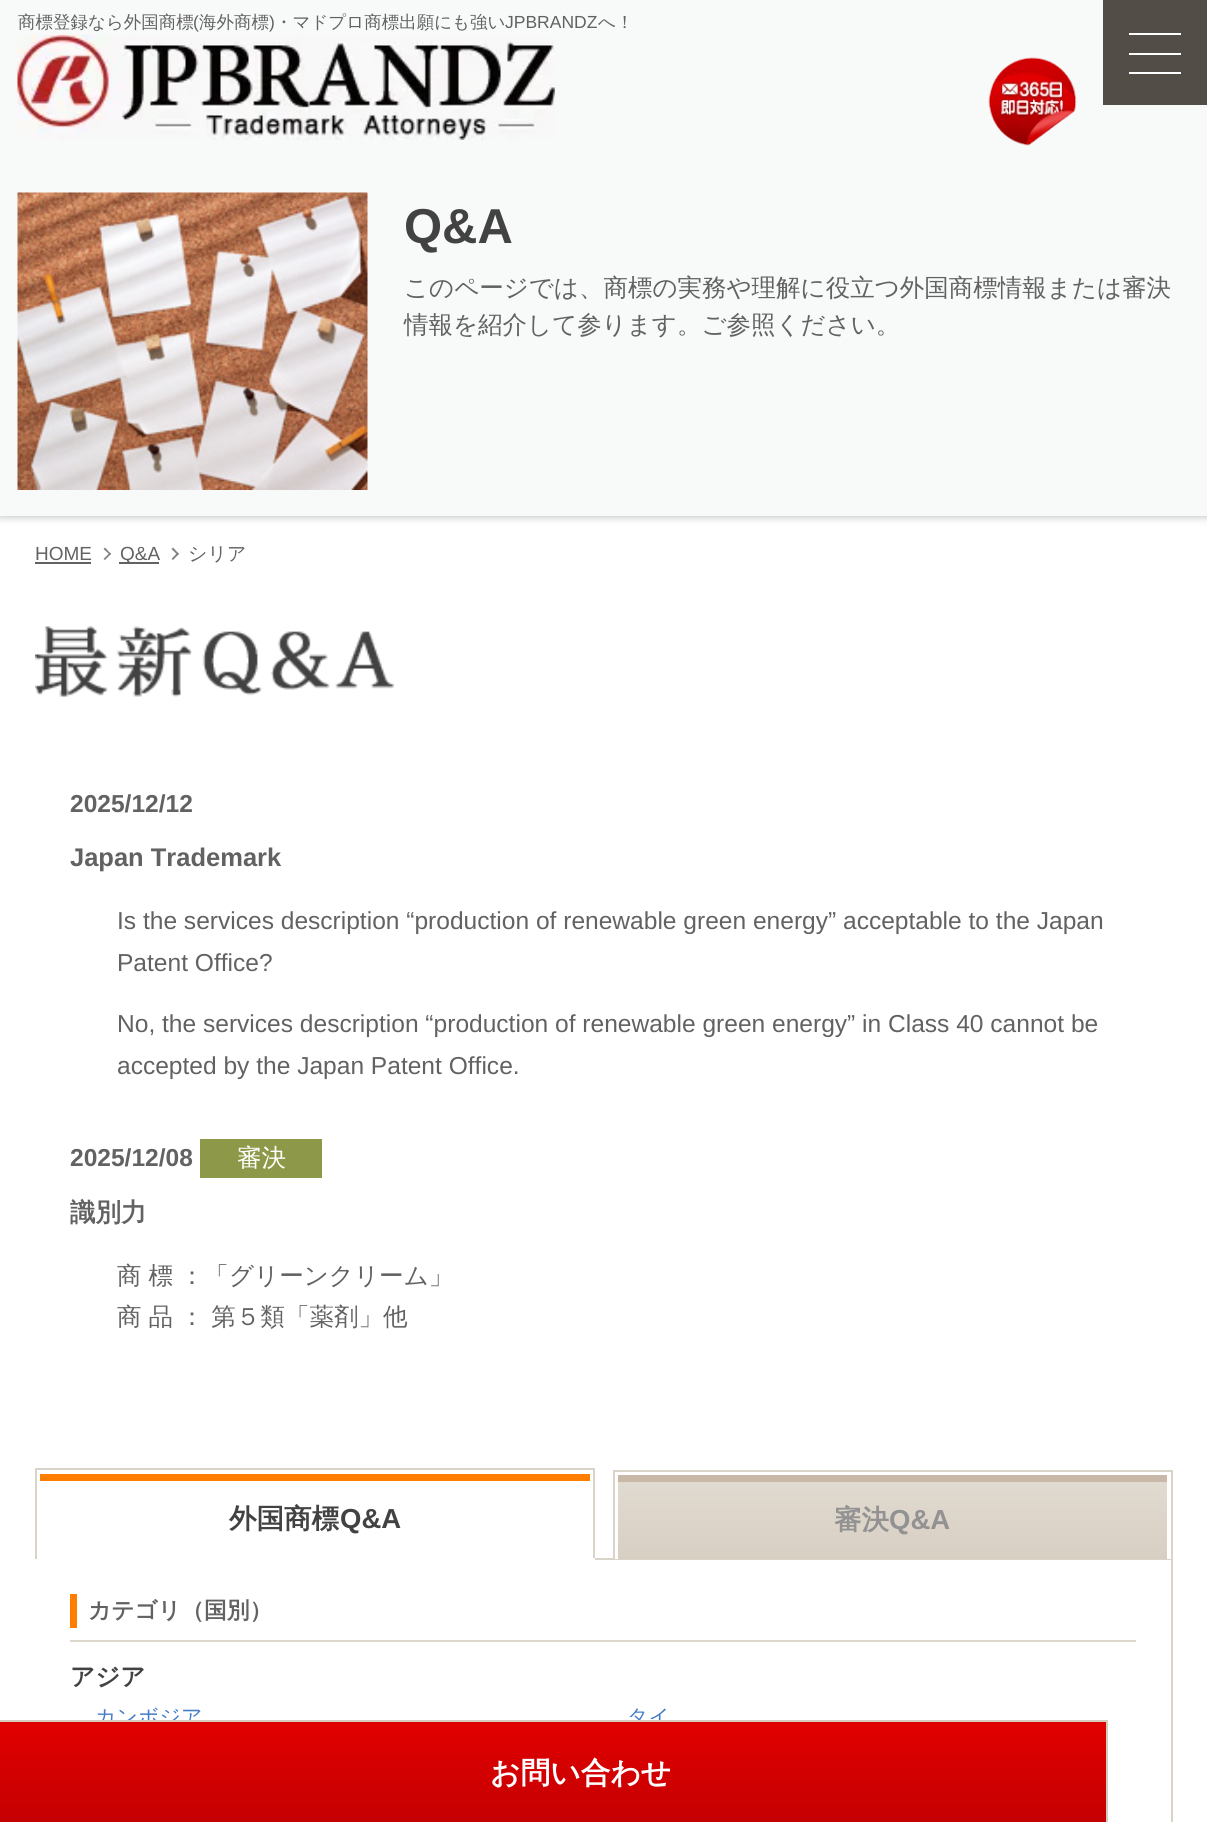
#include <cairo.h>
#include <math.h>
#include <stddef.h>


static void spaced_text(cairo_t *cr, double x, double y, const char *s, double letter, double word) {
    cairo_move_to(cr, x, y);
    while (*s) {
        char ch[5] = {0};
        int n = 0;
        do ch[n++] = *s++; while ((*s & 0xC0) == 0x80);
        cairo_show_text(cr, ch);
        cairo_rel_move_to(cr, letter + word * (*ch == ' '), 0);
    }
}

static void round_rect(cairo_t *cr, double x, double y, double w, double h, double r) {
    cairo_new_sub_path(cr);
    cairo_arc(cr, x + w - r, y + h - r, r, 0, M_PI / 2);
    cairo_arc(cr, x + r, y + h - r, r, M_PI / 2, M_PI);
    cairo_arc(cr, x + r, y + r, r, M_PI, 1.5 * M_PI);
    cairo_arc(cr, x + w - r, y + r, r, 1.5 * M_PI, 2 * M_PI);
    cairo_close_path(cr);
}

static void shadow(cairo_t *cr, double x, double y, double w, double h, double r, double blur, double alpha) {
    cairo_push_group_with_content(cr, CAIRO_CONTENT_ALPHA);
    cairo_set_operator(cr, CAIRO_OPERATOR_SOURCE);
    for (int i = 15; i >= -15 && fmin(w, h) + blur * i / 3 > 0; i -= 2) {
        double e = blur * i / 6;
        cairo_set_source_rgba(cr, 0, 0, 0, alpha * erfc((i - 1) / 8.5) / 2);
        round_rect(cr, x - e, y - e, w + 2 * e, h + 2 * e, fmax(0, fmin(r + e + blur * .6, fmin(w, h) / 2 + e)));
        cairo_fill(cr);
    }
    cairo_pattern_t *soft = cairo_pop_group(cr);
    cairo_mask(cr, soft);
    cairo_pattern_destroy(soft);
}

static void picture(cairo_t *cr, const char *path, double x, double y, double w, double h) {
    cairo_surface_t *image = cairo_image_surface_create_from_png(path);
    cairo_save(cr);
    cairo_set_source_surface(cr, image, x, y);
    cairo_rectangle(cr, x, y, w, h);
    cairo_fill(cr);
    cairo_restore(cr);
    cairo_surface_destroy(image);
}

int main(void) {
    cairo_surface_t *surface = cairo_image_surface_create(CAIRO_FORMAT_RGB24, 1207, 1822);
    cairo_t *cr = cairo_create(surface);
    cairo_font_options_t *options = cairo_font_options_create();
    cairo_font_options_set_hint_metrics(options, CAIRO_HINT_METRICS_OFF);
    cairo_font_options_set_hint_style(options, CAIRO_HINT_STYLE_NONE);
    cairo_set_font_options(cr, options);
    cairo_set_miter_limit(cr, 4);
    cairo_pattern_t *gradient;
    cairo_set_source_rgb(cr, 1, 1, 1);
    cairo_paint(cr);
    cairo_set_source_rgb(cr, 0, 0, 0);
    shadow(cr, 0, 0, 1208, 516, 0, 4.5, 0.3);
    cairo_set_source_rgb(cr, 0.969, 0.973, 0.973);
    cairo_rectangle(cr, 0, 0, 1207, 516);
    cairo_fill(cr);
    cairo_select_font_face(cr, "WenQuanYi Zen Hei Medium", CAIRO_FONT_SLANT_NORMAL, CAIRO_FONT_WEIGHT_NORMAL);
    cairo_set_font_size(cr, 17.5);
    cairo_set_source_rgb(cr, 0.384, 0.384, 0.384);
    cairo_move_to(cr, 18, 28);
    cairo_show_text(cr, "商標登録なら外国商標");
    cairo_select_font_face(cr, "Liberation Sans", CAIRO_FONT_SLANT_NORMAL, CAIRO_FONT_WEIGHT_NORMAL);
    cairo_move_to(cr, 193, 28);
    cairo_show_text(cr, "(");
    cairo_select_font_face(cr, "WenQuanYi Zen Hei Medium", CAIRO_FONT_SLANT_NORMAL, CAIRO_FONT_WEIGHT_NORMAL);
    cairo_move_to(cr, 199, 28);
    cairo_show_text(cr, "海外商標");
    cairo_select_font_face(cr, "Liberation Sans", CAIRO_FONT_SLANT_NORMAL, CAIRO_FONT_WEIGHT_NORMAL);
    cairo_move_to(cr, 269, 28);
    cairo_show_text(cr, ")");
    cairo_select_font_face(cr, "WenQuanYi Zen Hei Medium", CAIRO_FONT_SLANT_NORMAL, CAIRO_FONT_WEIGHT_NORMAL);
    cairo_move_to(cr, 275, 28);
    cairo_show_text(cr, "・マドプロ商標出願にも強い");
    cairo_select_font_face(cr, "Liberation Sans", CAIRO_FONT_SLANT_NORMAL, CAIRO_FONT_WEIGHT_NORMAL);
    cairo_move_to(cr, 505, 28);
    cairo_show_text(cr, "JPBRANDZ");
    cairo_select_font_face(cr, "WenQuanYi Zen Hei Medium", CAIRO_FONT_SLANT_NORMAL, CAIRO_FONT_WEIGHT_NORMAL);
    cairo_move_to(cr, 598, 28);
    cairo_show_text(cr, "へ！");
    cairo_set_source_rgb(cr, 0.322, 0.302, 0.278);
    cairo_rectangle(cr, 1103, 0, 104, 105);
    cairo_fill(cr);
    cairo_set_source_rgb(cr, 1, 1, 1);
    cairo_rectangle(cr, 1129, 33, 52, 2);
    cairo_fill(cr);
    cairo_rectangle(cr, 1129, 53, 52, 2);
    cairo_fill(cr);
    cairo_rectangle(cr, 1129, 72, 52, 2);
    cairo_fill(cr);
    picture(cr, "img1.png", 17, 35, 538, 105);
    picture(cr, "img2.png", 988, 57, 89, 89);
    picture(cr, "img3.png", 17, 192, 351, 298);
    cairo_select_font_face(cr, "Liberation Sans", CAIRO_FONT_SLANT_NORMAL, CAIRO_FONT_WEIGHT_BOLD);
    cairo_set_font_size(cr, 49);
    cairo_set_source_rgb(cr, 0.259, 0.259, 0.259);
    cairo_move_to(cr, 404, 243);
    cairo_show_text(cr, "Q&A");
    cairo_select_font_face(cr, "WenQuanYi Zen Hei Medium", CAIRO_FONT_SLANT_NORMAL, CAIRO_FONT_WEIGHT_NORMAL);
    cairo_set_font_size(cr, 24.5);
    cairo_set_source_rgb(cr, 0.384, 0.384, 0.384);
    cairo_move_to(cr, 404, 296);
    cairo_show_text(cr, "このページでは、商標の実務や理解に役立つ外国商標情報または審決");
    cairo_move_to(cr, 404, 333);
    cairo_show_text(cr, "情報を紹介して参ります。ご参照ください。");
    cairo_select_font_face(cr, "Liberation Sans", CAIRO_FONT_SLANT_NORMAL, CAIRO_FONT_WEIGHT_NORMAL);
    cairo_set_font_size(cr, 19);
    cairo_move_to(cr, 35, 560);
    cairo_show_text(cr, "HOME");
    cairo_rectangle(cr, 35, 562, 56, 2);
    cairo_fill(cr);
    cairo_set_source_rgb(cr, 0.506, 0.506, 0.506);
    cairo_new_path(cr);
    cairo_move_to(cr, 105, 547.5);
    cairo_line_to(cr, 111, 554);
    cairo_line_to(cr, 110, 555);
    cairo_line_to(cr, 103.5, 549);
    cairo_close_path(cr);
    cairo_fill(cr);
    cairo_new_path(cr);
    cairo_move_to(cr, 110, 552.5);
    cairo_line_to(cr, 111, 554);
    cairo_line_to(cr, 105, 560);
    cairo_line_to(cr, 103.5, 559);
    cairo_close_path(cr);
    cairo_fill(cr);
    cairo_set_source_rgb(cr, 0.384, 0.384, 0.384);
    cairo_rectangle(cr, 119, 562, 40, 2);
    cairo_fill(cr);
    cairo_move_to(cr, 120, 560);
    cairo_show_text(cr, "Q&A");
    cairo_set_source_rgb(cr, 0.506, 0.506, 0.506);
    cairo_new_path(cr);
    cairo_move_to(cr, 173, 547.5);
    cairo_line_to(cr, 179, 554);
    cairo_line_to(cr, 177.5, 555);
    cairo_line_to(cr, 171.5, 549);
    cairo_close_path(cr);
    cairo_fill(cr);
    cairo_new_path(cr);
    cairo_move_to(cr, 177.5, 552.5);
    cairo_line_to(cr, 179, 554);
    cairo_line_to(cr, 173, 560);
    cairo_line_to(cr, 171.5, 559);
    cairo_close_path(cr);
    cairo_fill(cr);
    cairo_select_font_face(cr, "WenQuanYi Zen Hei Medium", CAIRO_FONT_SLANT_NORMAL, CAIRO_FONT_WEIGHT_NORMAL);
    cairo_set_source_rgb(cr, 0.384, 0.384, 0.384);
    cairo_move_to(cr, 188, 560);
    cairo_show_text(cr, "シリア");
    picture(cr, "img4.png", 35, 626, 359, 71);
    cairo_select_font_face(cr, "Liberation Sans", CAIRO_FONT_SLANT_NORMAL, CAIRO_FONT_WEIGHT_BOLD);
    cairo_set_font_size(cr, 24.55);
    cairo_move_to(cr, 70, 812);
    cairo_show_text(cr, "2025/12/12");
    cairo_set_font_size(cr, 25.5);
    cairo_move_to(cr, 70, 866);
    cairo_show_text(cr, "Japan Trademark");
    cairo_select_font_face(cr, "Liberation Sans", CAIRO_FONT_SLANT_NORMAL, CAIRO_FONT_WEIGHT_NORMAL);
    cairo_set_font_size(cr, 24.55);
    cairo_move_to(cr, 117, 929);
    cairo_show_text(cr, "Is the services description “production of renewable green energy” acceptable to the Japan");
    cairo_move_to(cr, 117, 971);
    cairo_show_text(cr, "Patent Office?");
    cairo_move_to(cr, 117, 1032);
    cairo_show_text(cr, "No, the services description “production of renewable green energy” in Class 40 cannot be");
    cairo_move_to(cr, 117, 1074);
    cairo_show_text(cr, "accepted by the Japan Patent Office.");
    cairo_select_font_face(cr, "Liberation Sans", CAIRO_FONT_SLANT_NORMAL, CAIRO_FONT_WEIGHT_BOLD);
    cairo_move_to(cr, 70, 1166);
    cairo_show_text(cr, "2025/12/08");
    cairo_set_source_rgb(cr, 0.553, 0.6, 0.282);
    cairo_rectangle(cr, 200, 1139, 122, 39);
    cairo_fill(cr);
    cairo_select_font_face(cr, "WenQuanYi Zen Hei Medium", CAIRO_FONT_SLANT_NORMAL, CAIRO_FONT_WEIGHT_NORMAL);
    cairo_set_source_rgb(cr, 1, 1, 1);
    cairo_move_to(cr, 237, 1166);
    cairo_show_text(cr, "審決");
    cairo_select_font_face(cr, "WenQuanYi Zen Hei", CAIRO_FONT_SLANT_NORMAL, CAIRO_FONT_WEIGHT_BOLD);
    cairo_set_font_size(cr, 25.5);
    cairo_set_source_rgb(cr, 0.384, 0.384, 0.384);
    cairo_move_to(cr, 70, 1221);
    cairo_show_text(cr, "識別力");
    cairo_select_font_face(cr, "WenQuanYi Zen Hei Medium", CAIRO_FONT_SLANT_NORMAL, CAIRO_FONT_WEIGHT_NORMAL);
    cairo_set_font_size(cr, 24.55);
    spaced_text(cr, 117, 1284, "商 標 ：「グリーンクリーム」", 0, -0.5);
    spaced_text(cr, 117, 1325, "商 品 ： 第５類「薬剤」他", 0, -0.5);
    cairo_set_source_rgb(cr, 0.855, 0.827, 0.788);
    cairo_rectangle(cr, 35, 1468, 560, 2);
    cairo_fill(cr);
    cairo_rectangle(cr, 593, 1468, 2, 91);
    cairo_fill(cr);
    cairo_set_source_rgb(cr, 1, 1, 1);
    cairo_rectangle(cr, 593, 1558, 2, 1);
    cairo_fill(cr);
    cairo_set_source_rgb(cr, 0.855, 0.827, 0.788);
    cairo_rectangle(cr, 35, 1468, 2, 91);
    cairo_fill(cr);
    cairo_set_source_rgb(cr, 1, 0.494, 0);
    cairo_rectangle(cr, 40, 1474, 550, 7);
    cairo_fill(cr);
    cairo_select_font_face(cr, "WenQuanYi Zen Hei", CAIRO_FONT_SLANT_NORMAL, CAIRO_FONT_WEIGHT_BOLD);
    cairo_set_font_size(cr, 27.5);
    cairo_set_source_rgb(cr, 0.259, 0.259, 0.259);
    cairo_move_to(cr, 229, 1528);
    cairo_show_text(cr, "外国商標");
    cairo_select_font_face(cr, "Liberation Sans", CAIRO_FONT_SLANT_NORMAL, CAIRO_FONT_WEIGHT_BOLD);
    cairo_move_to(cr, 340, 1528);
    cairo_show_text(cr, "Q&A");
    cairo_set_source_rgb(cr, 0.855, 0.827, 0.788);
    cairo_rectangle(cr, 595, 1558, 578, 2);
    cairo_fill(cr);
    cairo_set_source_rgb(cr, 1, 1, 1);
    cairo_rectangle(cr, 615, 1558, 556, 1);
    cairo_fill(cr);
    cairo_set_source_rgb(cr, 0.855, 0.827, 0.788);
    cairo_rectangle(cr, 613, 1470, 560, 2);
    cairo_fill(cr);
    cairo_rectangle(cr, 1171, 1558, 2, 264);
    cairo_fill(cr);
    cairo_rectangle(cr, 1171, 1470, 2, 89);
    cairo_fill(cr);
    cairo_rectangle(cr, 613, 1470, 2, 89);
    cairo_fill(cr);
    gradient = cairo_pattern_create_linear(893, 1482, 893, 1559);
    cairo_pattern_add_color_stop_rgba(gradient, 0, 0.882, 0.855, 0.816, 1);
    cairo_pattern_add_color_stop_rgba(gradient, 1, 0.847, 0.812, 0.765, 1);
    cairo_set_source(cr, gradient);
    cairo_pattern_destroy(gradient);
    cairo_rectangle(cr, 618, 1482, 549, 77);
    cairo_fill(cr);
    cairo_set_source_rgb(cr, 0.78, 0.722, 0.655);
    cairo_rectangle(cr, 618, 1475, 549, 7);
    cairo_fill(cr);
    cairo_select_font_face(cr, "WenQuanYi Zen Hei", CAIRO_FONT_SLANT_NORMAL, CAIRO_FONT_WEIGHT_BOLD);
    cairo_set_source_rgb(cr, 0.573, 0.573, 0.573);
    cairo_move_to(cr, 834, 1529);
    cairo_show_text(cr, "審決");
    cairo_select_font_face(cr, "Liberation Sans", CAIRO_FONT_SLANT_NORMAL, CAIRO_FONT_WEIGHT_BOLD);
    cairo_move_to(cr, 889, 1529);
    cairo_show_text(cr, "Q&A");
    cairo_set_source_rgb(cr, 0.863, 0.843, 0.792);
    cairo_rectangle(cr, 70, 1640, 1066, 2);
    cairo_fill(cr);
    cairo_set_source_rgb(cr, 1, 0.494, 0);
    cairo_rectangle(cr, 70, 1594, 7, 34);
    cairo_fill(cr);
    cairo_select_font_face(cr, "WenQuanYi Zen Hei", CAIRO_FONT_SLANT_NORMAL, CAIRO_FONT_WEIGHT_BOLD);
    cairo_set_font_size(cr, 22.75);
    cairo_set_source_rgb(cr, 0.384, 0.384, 0.384);
    cairo_move_to(cr, 88, 1618);
    cairo_show_text(cr, "カテゴリ（国別）");
    cairo_set_font_size(cr, 24.55);
    cairo_set_source_rgb(cr, 0.259, 0.259, 0.259);
    cairo_move_to(cr, 70, 1685);
    cairo_show_text(cr, "アジア");
    cairo_select_font_face(cr, "WenQuanYi Zen Hei Medium", CAIRO_FONT_SLANT_NORMAL, CAIRO_FONT_WEIGHT_NORMAL);
    cairo_set_font_size(cr, 21);
    cairo_set_source_rgb(cr, 0.267, 0.486, 0.788);
    cairo_move_to(cr, 95, 1724);
    cairo_show_text(cr, "カンボジア");
    cairo_move_to(cr, 627, 1724);
    cairo_show_text(cr, "タイ");
    cairo_set_source_rgb(cr, 0.827, 0.804, 0.741);
    cairo_rectangle(cr, 1106, 1720, 2, 102);
    cairo_fill(cr);
    gradient = cairo_pattern_create_linear(553, 1722, 553, 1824);
    cairo_pattern_add_color_stop_rgba(gradient, 0, 0.882, 0, 0.004, 1);
    cairo_pattern_add_color_stop_rgba(gradient, 1, 0.769, 0, 0.004, 1);
    cairo_set_source(cr, gradient);
    cairo_pattern_destroy(gradient);
    cairo_rectangle(cr, 0, 1722, 1106, 100);
    cairo_fill(cr);
    cairo_set_source_rgb(cr, 0.827, 0.804, 0.745);
    cairo_rectangle(cr, 0, 1720, 1106, 2);
    cairo_fill(cr);
    cairo_select_font_face(cr, "WenQuanYi Zen Hei", CAIRO_FONT_SLANT_NORMAL, CAIRO_FONT_WEIGHT_BOLD);
    cairo_set_font_size(cr, 29.75);
    cairo_set_source_rgb(cr, 1, 1, 1);
    cairo_move_to(cr, 490, 1783);
    cairo_show_text(cr, "お問い合わせ");
    cairo_surface_write_to_png(surface, "page.png");
    cairo_font_options_destroy(options);
    cairo_destroy(cr);
    cairo_surface_destroy(surface);
    return 0;
}
